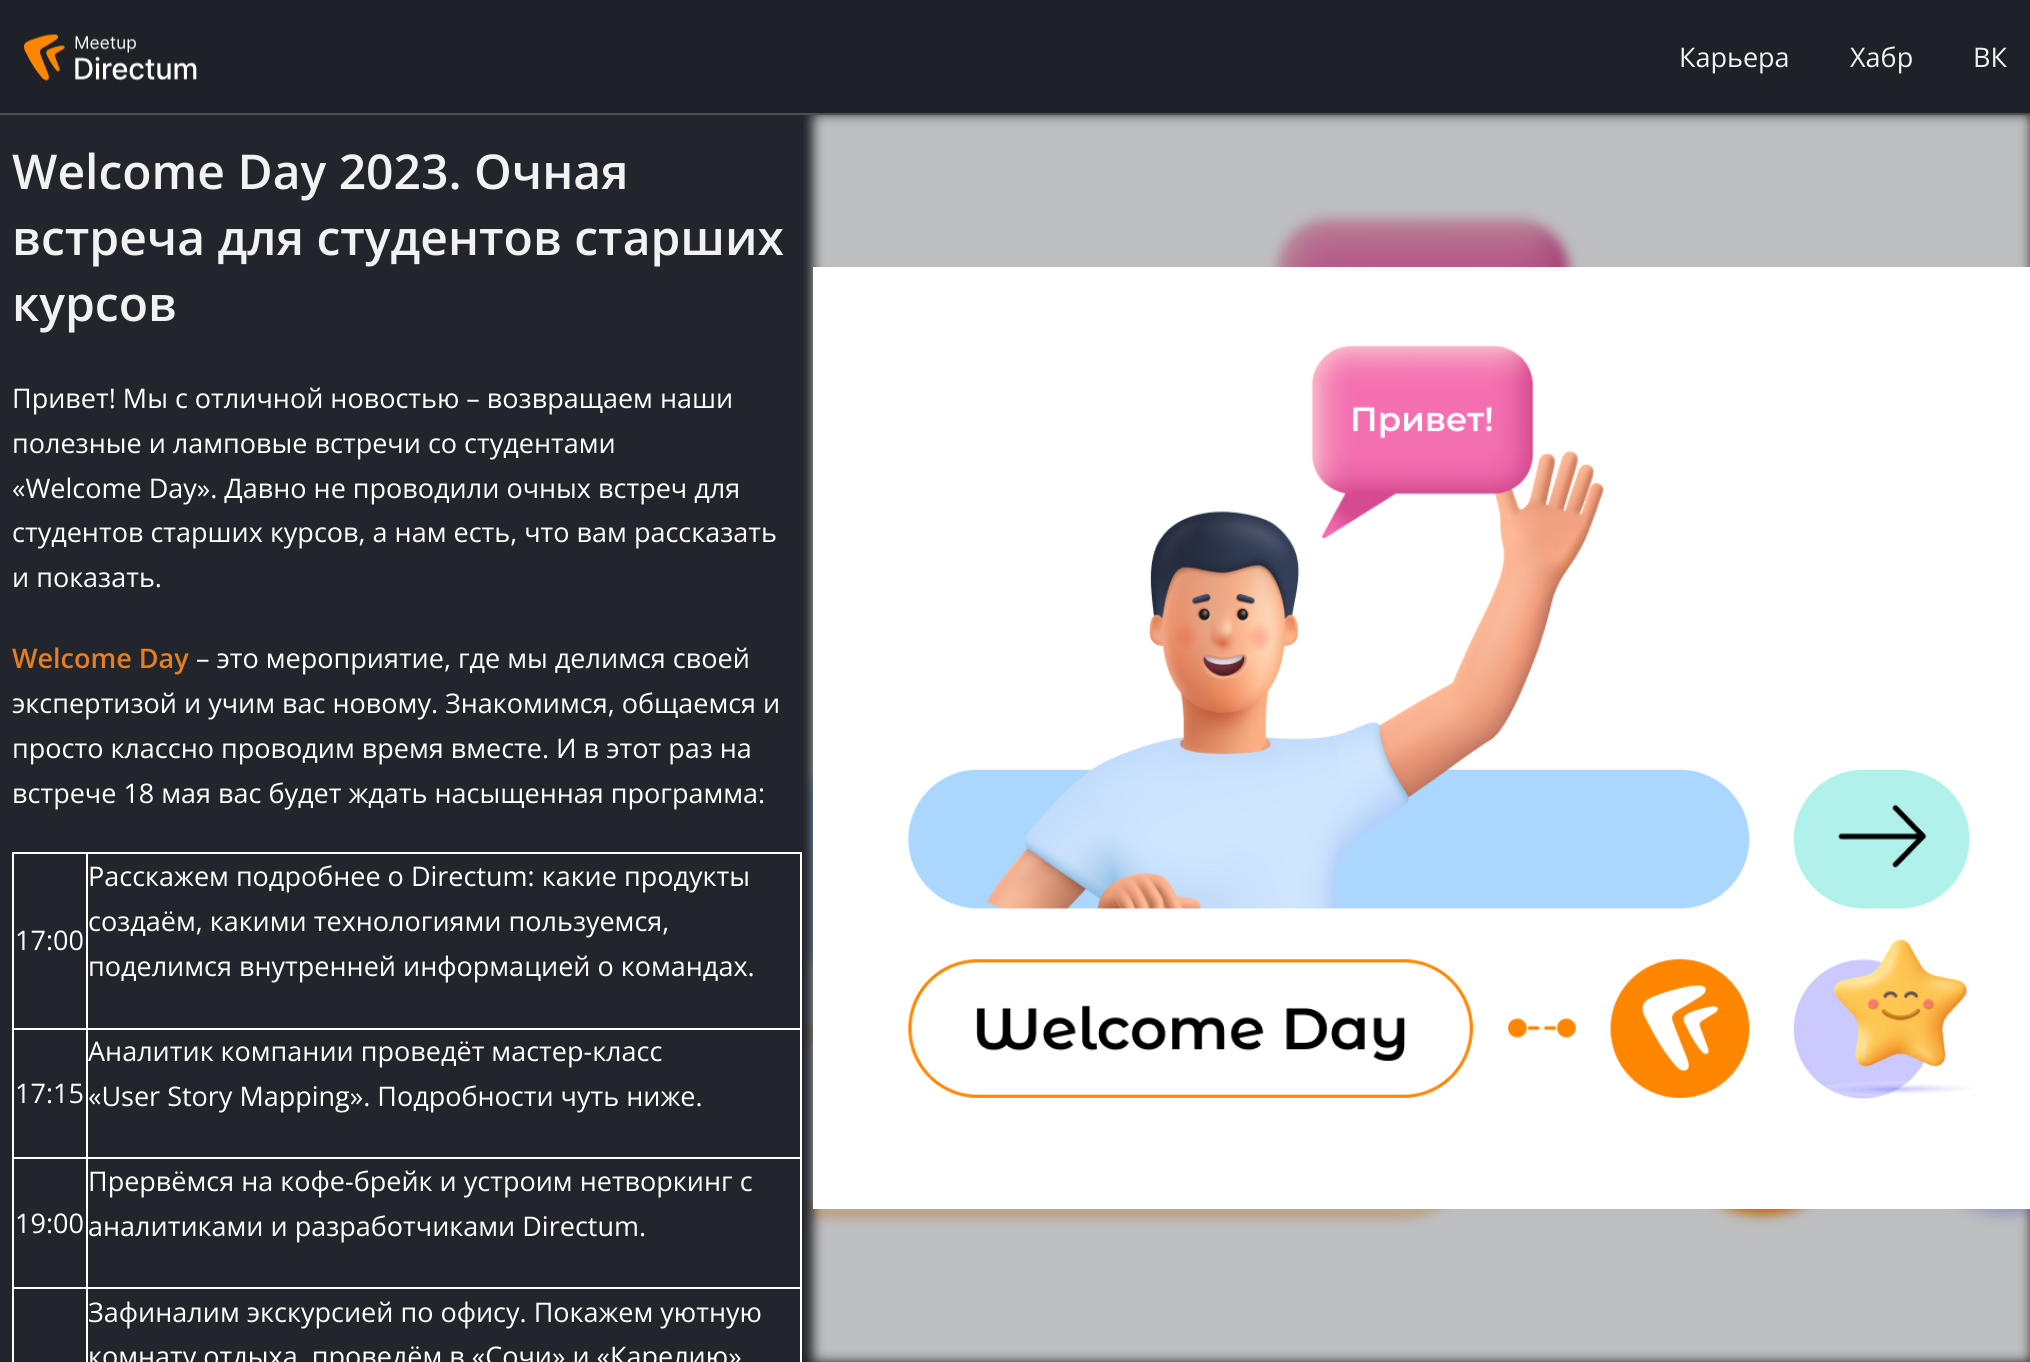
#include <cairo.h>
#include <math.h>
#include <stddef.h>


static void picture(cairo_t *cr, const char *path, double x, double y, double w, double h) {
    cairo_surface_t *image = cairo_image_surface_create_from_png(path);
    cairo_save(cr);
    cairo_set_source_surface(cr, image, x, y);
    cairo_rectangle(cr, x, y, w, h);
    cairo_fill(cr);
    cairo_restore(cr);
    cairo_surface_destroy(image);
}

int main(void) {
    cairo_surface_t *surface = cairo_image_surface_create(CAIRO_FORMAT_RGB24, 2030, 1362);
    cairo_t *cr = cairo_create(surface);
    cairo_font_options_t *options = cairo_font_options_create();
    cairo_font_options_set_hint_metrics(options, CAIRO_HINT_METRICS_OFF);
    cairo_font_options_set_hint_style(options, CAIRO_HINT_STYLE_NONE);
    cairo_set_font_options(cr, options);
    cairo_set_miter_limit(cr, 4);
    cairo_set_source_rgb(cr, 0.133, 0.145, 0.169);
    cairo_paint(cr);
    cairo_set_source_rgb(cr, 0.118, 0.129, 0.157);
    cairo_rectangle(cr, 0, 0, 2030, 113);
    cairo_fill(cr);
    cairo_set_source_rgb(cr, 0.31, 0.31, 0.31);
    cairo_rectangle(cr, 0, 113, 2030, 2);
    cairo_fill(cr);
    picture(cr, "img1.png", 24, 34, 173, 47);
    cairo_select_font_face(cr, "Open Sans", CAIRO_FONT_SLANT_NORMAL, CAIRO_FONT_WEIGHT_NORMAL);
    cairo_set_font_size(cr, 27);
    cairo_set_source_rgb(cr, 0.949, 0.949, 0.949);
    cairo_move_to(cr, 1679, 67);
    cairo_show_text(cr, "Карьера");
    cairo_move_to(cr, 1850, 67);
    cairo_show_text(cr, "Хабр");
    cairo_move_to(cr, 1973, 67);
    cairo_show_text(cr, "ВК");
    cairo_select_font_face(cr, "Open Sans SemiBold", CAIRO_FONT_SLANT_NORMAL, CAIRO_FONT_WEIGHT_NORMAL);
    cairo_set_font_size(cr, 48);
    cairo_move_to(cr, 12, 189);
    cairo_show_text(cr, "Welcome Day 2023. Очная");
    cairo_move_to(cr, 12, 255);
    cairo_show_text(cr, "встреча для студентов старших");
    cairo_move_to(cr, 12, 321);
    cairo_show_text(cr, "курсов");
    cairo_select_font_face(cr, "Open Sans", CAIRO_FONT_SLANT_NORMAL, CAIRO_FONT_WEIGHT_NORMAL);
    cairo_set_font_size(cr, 27);
    cairo_set_source_rgb(cr, 1, 1, 1);
    cairo_move_to(cr, 12, 408);
    cairo_show_text(cr, "Привет! Мы с отличной новостью – возвращаем наши");
    cairo_move_to(cr, 12, 453);
    cairo_show_text(cr, "полезные и ламповые встречи со студентами");
    cairo_move_to(cr, 12, 498);
    cairo_show_text(cr, "«Welcome Day». Давно не проводили очных встреч для");
    cairo_move_to(cr, 12, 542);
    cairo_show_text(cr, "студентов старших курсов, а нам есть, что вам рассказать");
    cairo_move_to(cr, 12, 587);
    cairo_show_text(cr, "и показать.");
    cairo_select_font_face(cr, "Open Sans SemiBold", CAIRO_FONT_SLANT_NORMAL, CAIRO_FONT_WEIGHT_NORMAL);
    cairo_set_source_rgb(cr, 0.902, 0.494, 0.137);
    cairo_move_to(cr, 12, 668);
    cairo_show_text(cr, "Welcome Day");
    cairo_select_font_face(cr, "Open Sans", CAIRO_FONT_SLANT_NORMAL, CAIRO_FONT_WEIGHT_NORMAL);
    cairo_set_source_rgb(cr, 1, 1, 1);
    cairo_move_to(cr, 196, 668);
    cairo_show_text(cr, "– это мероприятие, где мы делимся своей");
    cairo_move_to(cr, 12, 713);
    cairo_show_text(cr, "экспертизой и учим вас новому. Знакомимся, общаемся и");
    cairo_move_to(cr, 12, 758);
    cairo_show_text(cr, "просто классно проводим время вместе. И в этот раз на");
    cairo_move_to(cr, 12, 803);
    cairo_show_text(cr, "встрече 18 мая вас будет ждать насыщенная программа:");
    cairo_rectangle(cr, 12, 852, 789, 2);
    cairo_fill(cr);
    cairo_rectangle(cr, 800, 852, 2, 510);
    cairo_fill(cr);
    cairo_rectangle(cr, 12, 852, 2, 510);
    cairo_fill(cr);
    cairo_move_to(cr, 15, 950);
    cairo_show_text(cr, "17:00");
    cairo_rectangle(cr, 86, 1028, 715, 2);
    cairo_fill(cr);
    cairo_rectangle(cr, 86, 1157, 715, 2);
    cairo_fill(cr);
    cairo_rectangle(cr, 86, 1287, 715, 2);
    cairo_fill(cr);
    cairo_rectangle(cr, 86, 1287, 2, 75);
    cairo_fill(cr);
    cairo_rectangle(cr, 12, 1287, 75, 2);
    cairo_fill(cr);
    cairo_rectangle(cr, 86, 1157, 2, 132);
    cairo_fill(cr);
    cairo_rectangle(cr, 12, 1157, 75, 2);
    cairo_fill(cr);
    cairo_rectangle(cr, 86, 1028, 2, 130);
    cairo_fill(cr);
    cairo_rectangle(cr, 12, 1028, 75, 2);
    cairo_fill(cr);
    cairo_rectangle(cr, 86, 852, 2, 177);
    cairo_fill(cr);
    cairo_move_to(cr, 88, 886);
    cairo_show_text(cr, "Расскажем подробнее о Directum: какие продукты");
    cairo_move_to(cr, 88, 931);
    cairo_show_text(cr, "создаём, какими технологиями пользуемся,");
    cairo_move_to(cr, 88, 976);
    cairo_show_text(cr, "поделимся внутренней информацией о командах.");
    cairo_move_to(cr, 15, 1103);
    cairo_show_text(cr, "17:15");
    cairo_move_to(cr, 88, 1061);
    cairo_show_text(cr, "Аналитик компании проведёт мастер-класс");
    cairo_move_to(cr, 88, 1106);
    cairo_show_text(cr, "«User Story Mapping». Подробности чуть ниже.");
    cairo_move_to(cr, 15, 1233);
    cairo_show_text(cr, "19:00");
    cairo_move_to(cr, 88, 1191);
    cairo_show_text(cr, "Прервёмся на кофе-брейк и устроим нетворкинг с");
    cairo_move_to(cr, 88, 1236);
    cairo_show_text(cr, "аналитиками и разработчиками Directum.");
    cairo_move_to(cr, 88, 1322);
    cairo_show_text(cr, "Зафиналим экскурсией по офису. Покажем уютную");
    cairo_move_to(cr, 88, 1366);
    cairo_show_text(cr, "комнату отдыха, проведём в «Сочи» и «Карелию»");
    picture(cr, "img2.png", 803, 115, 1227, 1247);
    picture(cr, "img3.png", 813, 267, 1217, 942);
    cairo_surface_write_to_png(surface, "page.png");
    cairo_font_options_destroy(options);
    cairo_destroy(cr);
    cairo_surface_destroy(surface);
    return 0;
}
